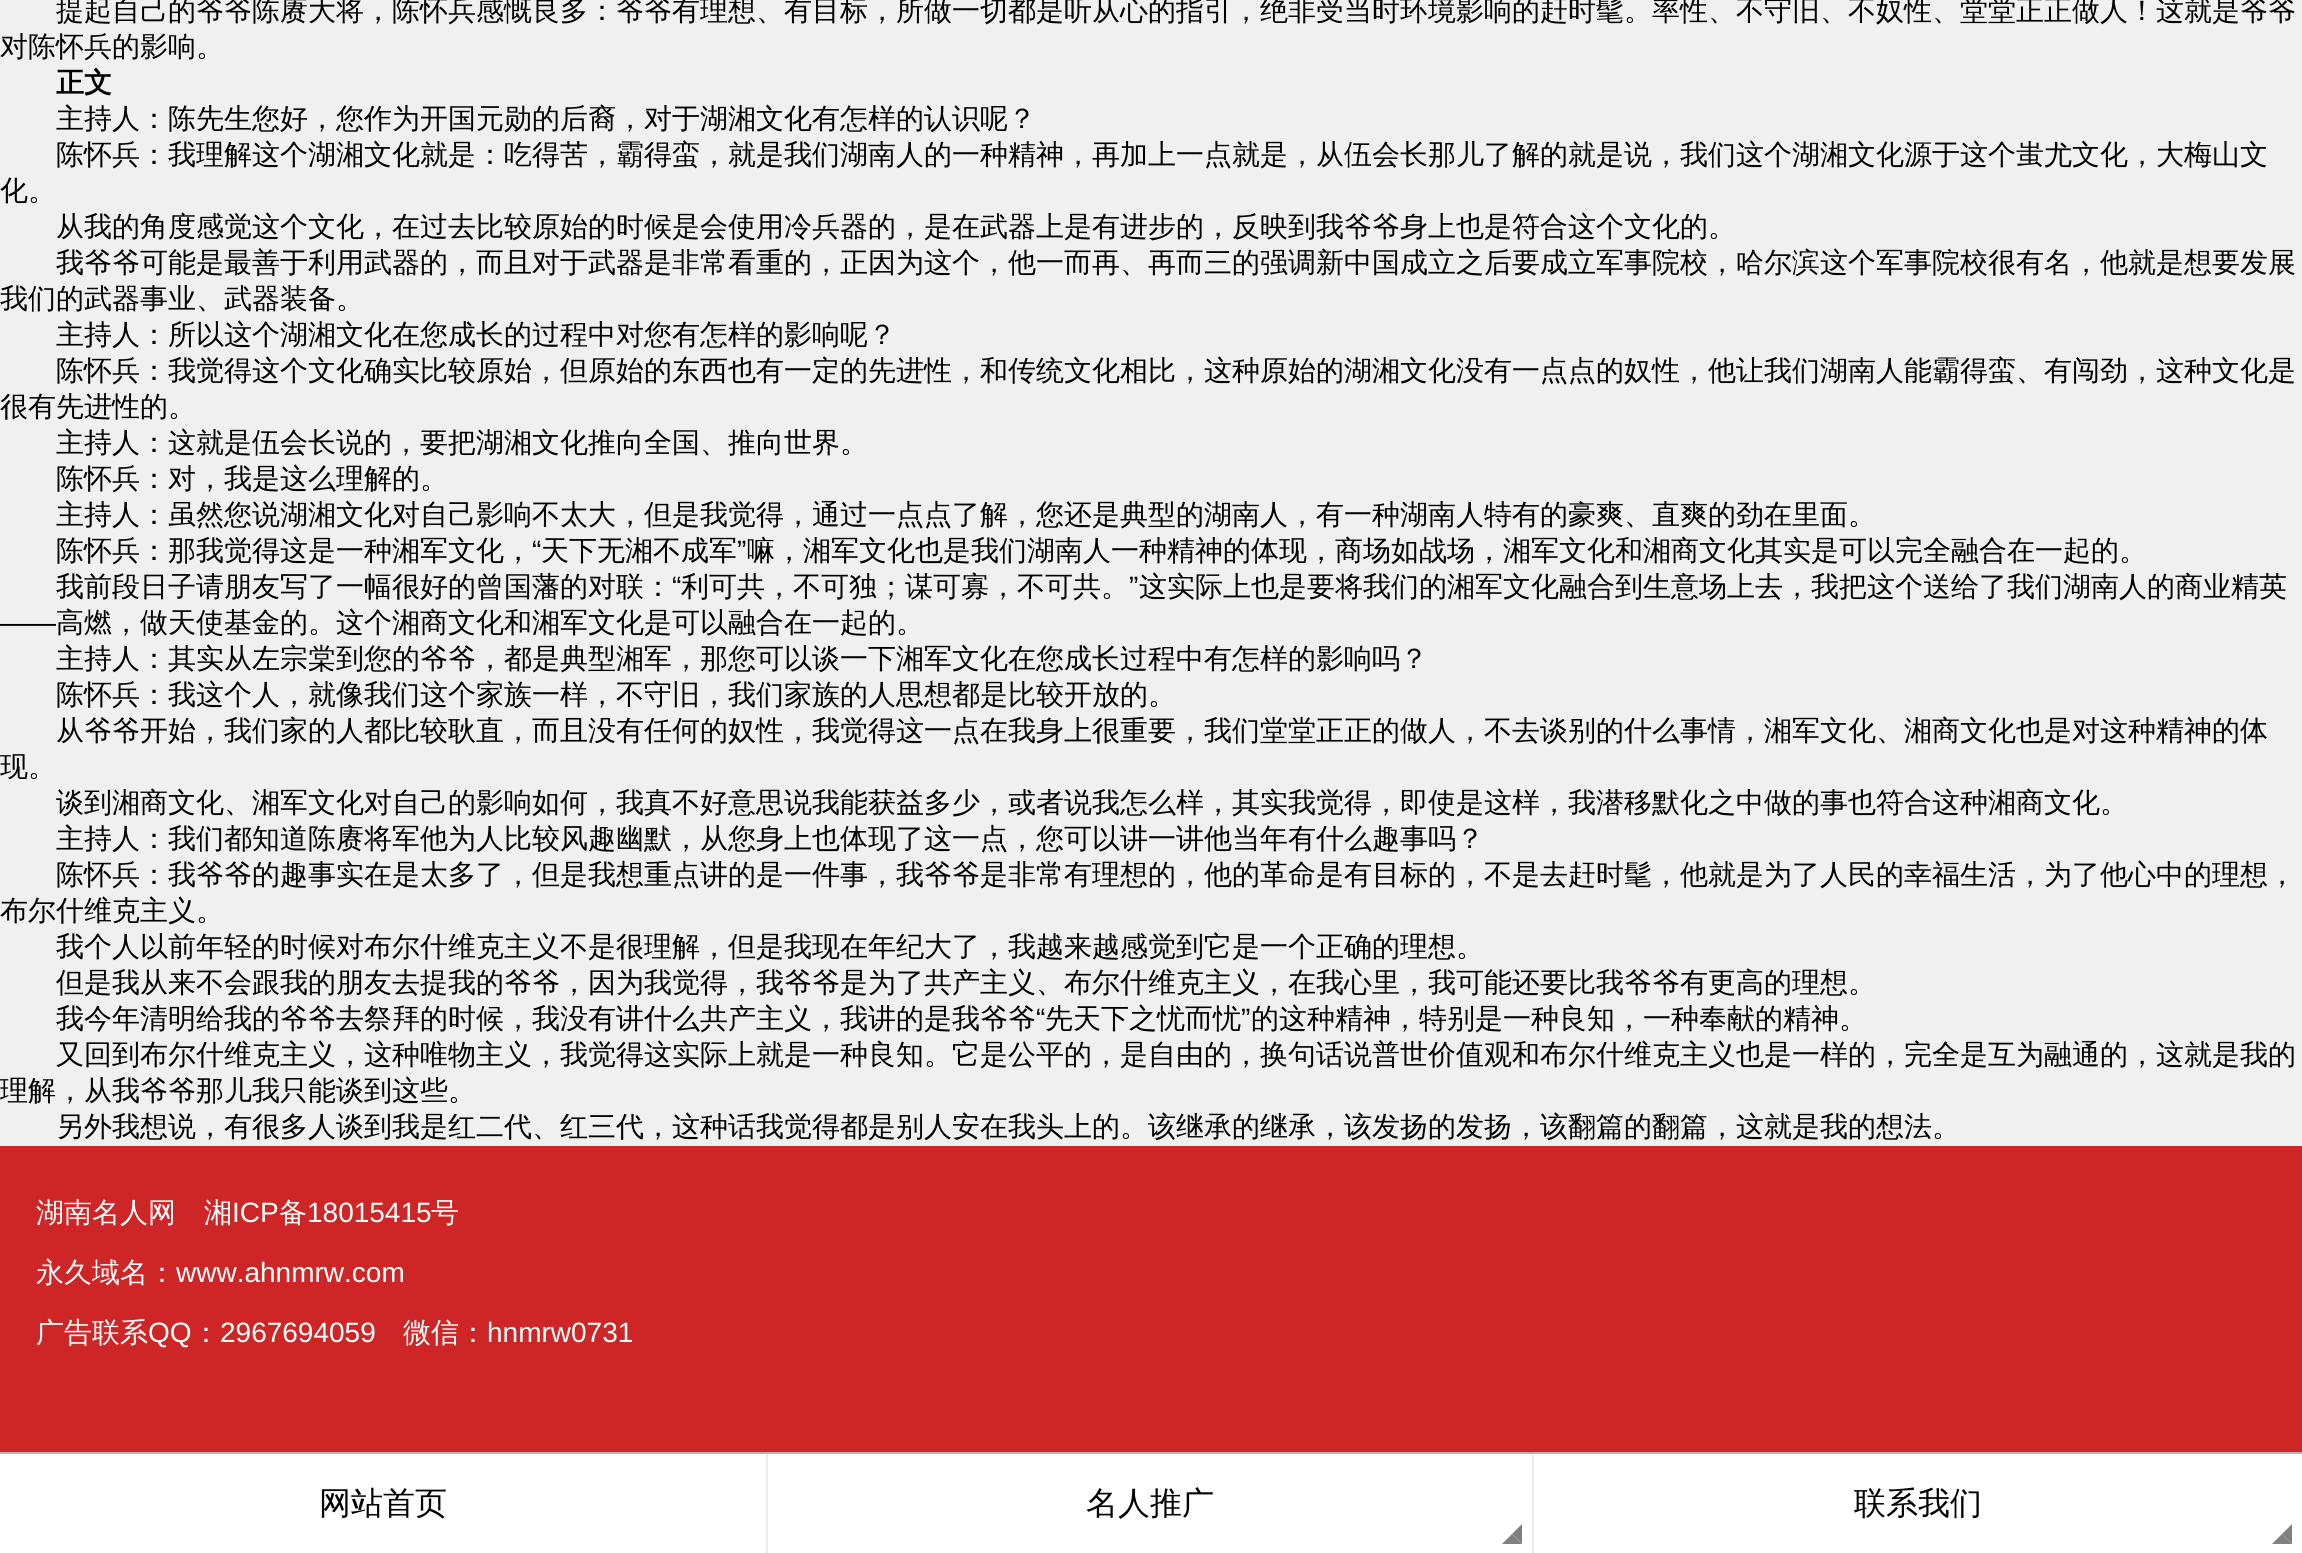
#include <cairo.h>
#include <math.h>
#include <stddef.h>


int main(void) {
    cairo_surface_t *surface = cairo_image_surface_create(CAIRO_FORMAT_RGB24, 2302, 1553);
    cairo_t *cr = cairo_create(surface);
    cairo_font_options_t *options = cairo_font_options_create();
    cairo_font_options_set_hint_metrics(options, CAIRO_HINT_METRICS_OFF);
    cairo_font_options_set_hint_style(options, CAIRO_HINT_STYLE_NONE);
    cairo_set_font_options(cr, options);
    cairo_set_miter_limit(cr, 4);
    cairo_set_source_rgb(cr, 0.941, 0.941, 0.941);
    cairo_paint(cr);
    cairo_select_font_face(cr, "WenQuanYi Zen Hei Medium", CAIRO_FONT_SLANT_NORMAL, CAIRO_FONT_WEIGHT_NORMAL);
    cairo_set_font_size(cr, 28);
    cairo_set_source_rgb(cr, 0, 0, 0);
    cairo_move_to(cr, 56, 20);
    cairo_show_text(cr, "提起自己的爷爷陈赓大将，陈怀兵感慨良多：爷爷有理想、有目标，所做一切都是听从心的指引，绝非受当时环境影响的赶时髦。率性、不守旧、不奴性、堂堂正正做人！这就是爷爷");
    cairo_move_to(cr, 0, 56);
    cairo_show_text(cr, "对陈怀兵的影响。");
    cairo_select_font_face(cr, "WenQuanYi Zen Hei", CAIRO_FONT_SLANT_NORMAL, CAIRO_FONT_WEIGHT_BOLD);
    cairo_move_to(cr, 56, 92);
    cairo_show_text(cr, "正文");
    cairo_select_font_face(cr, "WenQuanYi Zen Hei Medium", CAIRO_FONT_SLANT_NORMAL, CAIRO_FONT_WEIGHT_NORMAL);
    cairo_move_to(cr, 56, 128);
    cairo_show_text(cr, "主持人：陈先生您好，您作为开国元勋的后裔，对于湖湘文化有怎样的认识呢？");
    cairo_move_to(cr, 56, 164);
    cairo_show_text(cr, "陈怀兵：我理解这个湖湘文化就是：吃得苦，霸得蛮，就是我们湖南人的一种精神，再加上一点就是，从伍会长那儿了解的就是说，我们这个湖湘文化源于这个蚩尤文化，大梅山文");
    cairo_move_to(cr, 0, 200);
    cairo_show_text(cr, "化。");
    cairo_move_to(cr, 56, 236);
    cairo_show_text(cr, "从我的角度感觉这个文化，在过去比较原始的时候是会使用冷兵器的，是在武器上是有进步的，反映到我爷爷身上也是符合这个文化的。");
    cairo_move_to(cr, 56, 272);
    cairo_show_text(cr, "我爷爷可能是最善于利用武器的，而且对于武器是非常看重的，正因为这个，他一而再、再而三的强调新中国成立之后要成立军事院校，哈尔滨这个军事院校很有名，他就是想要发展");
    cairo_move_to(cr, 0, 308);
    cairo_show_text(cr, "我们的武器事业、武器装备。");
    cairo_move_to(cr, 56, 344);
    cairo_show_text(cr, "主持人：所以这个湖湘文化在您成长的过程中对您有怎样的影响呢？");
    cairo_move_to(cr, 56, 380);
    cairo_show_text(cr, "陈怀兵：我觉得这个文化确实比较原始，但原始的东西也有一定的先进性，和传统文化相比，这种原始的湖湘文化没有一点点的奴性，他让我们湖南人能霸得蛮、有闯劲，这种文化是");
    cairo_move_to(cr, 0, 416);
    cairo_show_text(cr, "很有先进性的。");
    cairo_move_to(cr, 56, 452);
    cairo_show_text(cr, "主持人：这就是伍会长说的，要把湖湘文化推向全国、推向世界。");
    cairo_move_to(cr, 56, 488);
    cairo_show_text(cr, "陈怀兵：对，我是这么理解的。");
    cairo_move_to(cr, 56, 524);
    cairo_show_text(cr, "主持人：虽然您说湖湘文化对自己影响不太大，但是我觉得，通过一点点了解，您还是典型的湖南人，有一种湖南人特有的豪爽、直爽的劲在里面。");
    cairo_move_to(cr, 56, 560);
    cairo_show_text(cr, "陈怀兵：那我觉得这是一种湘军文化，");
    cairo_select_font_face(cr, "Liberation Sans", CAIRO_FONT_SLANT_NORMAL, CAIRO_FONT_WEIGHT_NORMAL);
    cairo_move_to(cr, 532, 560);
    cairo_show_text(cr, "“");
    cairo_select_font_face(cr, "WenQuanYi Zen Hei Medium", CAIRO_FONT_SLANT_NORMAL, CAIRO_FONT_WEIGHT_NORMAL);
    cairo_move_to(cr, 541, 560);
    cairo_show_text(cr, "天下无湘不成军");
    cairo_select_font_face(cr, "Liberation Sans", CAIRO_FONT_SLANT_NORMAL, CAIRO_FONT_WEIGHT_NORMAL);
    cairo_move_to(cr, 737, 560);
    cairo_show_text(cr, "”");
    cairo_select_font_face(cr, "WenQuanYi Zen Hei Medium", CAIRO_FONT_SLANT_NORMAL, CAIRO_FONT_WEIGHT_NORMAL);
    cairo_move_to(cr, 747, 560);
    cairo_show_text(cr, "嘛，湘军文化也是我们湖南人一种精神的体现，商场如战场，湘军文化和湘商文化其实是可以完全融合在一起的。");
    cairo_move_to(cr, 56, 596);
    cairo_show_text(cr, "我前段日子请朋友写了一幅很好的曾国藩的对联：");
    cairo_select_font_face(cr, "Liberation Sans", CAIRO_FONT_SLANT_NORMAL, CAIRO_FONT_WEIGHT_NORMAL);
    cairo_move_to(cr, 672, 596);
    cairo_show_text(cr, "“");
    cairo_select_font_face(cr, "WenQuanYi Zen Hei Medium", CAIRO_FONT_SLANT_NORMAL, CAIRO_FONT_WEIGHT_NORMAL);
    cairo_move_to(cr, 681, 596);
    cairo_show_text(cr, "利可共，不可独；谋可寡，不可共。");
    cairo_select_font_face(cr, "Liberation Sans", CAIRO_FONT_SLANT_NORMAL, CAIRO_FONT_WEIGHT_NORMAL);
    cairo_move_to(cr, 1129, 596);
    cairo_show_text(cr, "”");
    cairo_select_font_face(cr, "WenQuanYi Zen Hei Medium", CAIRO_FONT_SLANT_NORMAL, CAIRO_FONT_WEIGHT_NORMAL);
    cairo_move_to(cr, 1139, 596);
    cairo_show_text(cr, "这实际上也是要将我们的湘军文化融合到生意场上去，我把这个送给了我们湖南人的商业精英");
    cairo_select_font_face(cr, "Liberation Sans", CAIRO_FONT_SLANT_NORMAL, CAIRO_FONT_WEIGHT_NORMAL);
    cairo_move_to(cr, 0, 632);
    cairo_show_text(cr, "——");
    cairo_select_font_face(cr, "WenQuanYi Zen Hei Medium", CAIRO_FONT_SLANT_NORMAL, CAIRO_FONT_WEIGHT_NORMAL);
    cairo_move_to(cr, 56, 632);
    cairo_show_text(cr, "高燃，做天使基金的。这个湘商文化和湘军文化是可以融合在一起的。");
    cairo_move_to(cr, 56, 668);
    cairo_show_text(cr, "主持人：其实从左宗棠到您的爷爷，都是典型湘军，那您可以谈一下湘军文化在您成长过程中有怎样的影响吗？");
    cairo_move_to(cr, 56, 704);
    cairo_show_text(cr, "陈怀兵：我这个人，就像我们这个家族一样，不守旧，我们家族的人思想都是比较开放的。");
    cairo_move_to(cr, 56, 740);
    cairo_show_text(cr, "从爷爷开始，我们家的人都比较耿直，而且没有任何的奴性，我觉得这一点在我身上很重要，我们堂堂正正的做人，不去谈别的什么事情，湘军文化、湘商文化也是对这种精神的体");
    cairo_move_to(cr, 0, 776);
    cairo_show_text(cr, "现。");
    cairo_move_to(cr, 56, 812);
    cairo_show_text(cr, "谈到湘商文化、湘军文化对自己的影响如何，我真不好意思说我能获益多少，或者说我怎么样，其实我觉得，即使是这样，我潜移默化之中做的事也符合这种湘商文化。");
    cairo_move_to(cr, 56, 848);
    cairo_show_text(cr, "主持人：我们都知道陈赓将军他为人比较风趣幽默，从您身上也体现了这一点，您可以讲一讲他当年有什么趣事吗？");
    cairo_move_to(cr, 56, 884);
    cairo_show_text(cr, "陈怀兵：我爷爷的趣事实在是太多了，但是我想重点讲的是一件事，我爷爷是非常有理想的，他的革命是有目标的，不是去赶时髦，他就是为了人民的幸福生活，为了他心中的理想，");
    cairo_move_to(cr, 0, 920);
    cairo_show_text(cr, "布尔什维克主义。");
    cairo_move_to(cr, 56, 956);
    cairo_show_text(cr, "我个人以前年轻的时候对布尔什维克主义不是很理解，但是我现在年纪大了，我越来越感觉到它是一个正确的理想。");
    cairo_move_to(cr, 56, 992);
    cairo_show_text(cr, "但是我从来不会跟我的朋友去提我的爷爷，因为我觉得，我爷爷是为了共产主义、布尔什维克主义，在我心里，我可能还要比我爷爷有更高的理想。");
    cairo_move_to(cr, 56, 1028);
    cairo_show_text(cr, "我今年清明给我的爷爷去祭拜的时候，我没有讲什么共产主义，我讲的是我爷爷");
    cairo_select_font_face(cr, "Liberation Sans", CAIRO_FONT_SLANT_NORMAL, CAIRO_FONT_WEIGHT_NORMAL);
    cairo_move_to(cr, 1036, 1028);
    cairo_show_text(cr, "“");
    cairo_select_font_face(cr, "WenQuanYi Zen Hei Medium", CAIRO_FONT_SLANT_NORMAL, CAIRO_FONT_WEIGHT_NORMAL);
    cairo_move_to(cr, 1045, 1028);
    cairo_show_text(cr, "先天下之忧而忧");
    cairo_select_font_face(cr, "Liberation Sans", CAIRO_FONT_SLANT_NORMAL, CAIRO_FONT_WEIGHT_NORMAL);
    cairo_move_to(cr, 1241, 1028);
    cairo_show_text(cr, "”");
    cairo_select_font_face(cr, "WenQuanYi Zen Hei Medium", CAIRO_FONT_SLANT_NORMAL, CAIRO_FONT_WEIGHT_NORMAL);
    cairo_move_to(cr, 1251, 1028);
    cairo_show_text(cr, "的这种精神，特别是一种良知，一种奉献的精神。");
    cairo_move_to(cr, 56, 1064);
    cairo_show_text(cr, "又回到布尔什维克主义，这种唯物主义，我觉得这实际上就是一种良知。它是公平的，是自由的，换句话说普世价值观和布尔什维克主义也是一样的，完全是互为融通的，这就是我的");
    cairo_move_to(cr, 0, 1100);
    cairo_show_text(cr, "理解，从我爷爷那儿我只能谈到这些。");
    cairo_move_to(cr, 56, 1136);
    cairo_show_text(cr, "另外我想说，有很多人谈到我是红二代、红三代，这种话我觉得都是别人安在我头上的。该继承的继承，该发扬的发扬，该翻篇的翻篇，这就是我的想法。");
    cairo_set_source_rgb(cr, 0.808, 0.149, 0.149);
    cairo_rectangle(cr, 0, 1146, 2302, 306);
    cairo_fill(cr);
    cairo_set_source_rgb(cr, 1, 1, 1);
    cairo_move_to(cr, 36, 1222);
    cairo_show_text(cr, "湖南名人网　湘");
    cairo_select_font_face(cr, "Liberation Sans", CAIRO_FONT_SLANT_NORMAL, CAIRO_FONT_WEIGHT_NORMAL);
    cairo_move_to(cr, 232, 1222);
    cairo_show_text(cr, "ICP");
    cairo_select_font_face(cr, "WenQuanYi Zen Hei Medium", CAIRO_FONT_SLANT_NORMAL, CAIRO_FONT_WEIGHT_NORMAL);
    cairo_move_to(cr, 279, 1222);
    cairo_show_text(cr, "备");
    cairo_select_font_face(cr, "Liberation Sans", CAIRO_FONT_SLANT_NORMAL, CAIRO_FONT_WEIGHT_NORMAL);
    cairo_move_to(cr, 307, 1222);
    cairo_show_text(cr, "18015415");
    cairo_select_font_face(cr, "WenQuanYi Zen Hei Medium", CAIRO_FONT_SLANT_NORMAL, CAIRO_FONT_WEIGHT_NORMAL);
    cairo_move_to(cr, 431, 1222);
    cairo_show_text(cr, "号");
    cairo_move_to(cr, 36, 1282);
    cairo_show_text(cr, "永久域名：");
    cairo_select_font_face(cr, "Liberation Sans", CAIRO_FONT_SLANT_NORMAL, CAIRO_FONT_WEIGHT_NORMAL);
    cairo_move_to(cr, 176, 1282);
    cairo_show_text(cr, "www.ahnmrw.com");
    cairo_select_font_face(cr, "WenQuanYi Zen Hei Medium", CAIRO_FONT_SLANT_NORMAL, CAIRO_FONT_WEIGHT_NORMAL);
    cairo_move_to(cr, 36, 1342);
    cairo_show_text(cr, "广告联系");
    cairo_select_font_face(cr, "Liberation Sans", CAIRO_FONT_SLANT_NORMAL, CAIRO_FONT_WEIGHT_NORMAL);
    cairo_move_to(cr, 148, 1342);
    cairo_show_text(cr, "QQ");
    cairo_select_font_face(cr, "WenQuanYi Zen Hei Medium", CAIRO_FONT_SLANT_NORMAL, CAIRO_FONT_WEIGHT_NORMAL);
    cairo_move_to(cr, 192, 1342);
    cairo_show_text(cr, "：");
    cairo_select_font_face(cr, "Liberation Sans", CAIRO_FONT_SLANT_NORMAL, CAIRO_FONT_WEIGHT_NORMAL);
    cairo_move_to(cr, 220, 1342);
    cairo_show_text(cr, "2967694059");
    cairo_select_font_face(cr, "WenQuanYi Zen Hei Medium", CAIRO_FONT_SLANT_NORMAL, CAIRO_FONT_WEIGHT_NORMAL);
    cairo_move_to(cr, 403, 1342);
    cairo_show_text(cr, "微信：");
    cairo_select_font_face(cr, "Liberation Sans", CAIRO_FONT_SLANT_NORMAL, CAIRO_FONT_WEIGHT_NORMAL);
    cairo_move_to(cr, 487, 1342);
    cairo_show_text(cr, "hnmrw0731");
    cairo_set_source_rgb(cr, 0.702, 0.702, 0.702);
    cairo_rectangle(cr, 0, 1452, 2302, 2);
    cairo_fill(cr);
    cairo_set_source_rgb(cr, 1, 1, 1);
    cairo_rectangle(cr, 0, 1454, 766, 99);
    cairo_fill(cr);
    cairo_set_source_rgb(cr, 0.922, 0.922, 0.922);
    cairo_rectangle(cr, 766, 1454, 2, 99);
    cairo_fill(cr);
    cairo_select_font_face(cr, "WenQuanYi Zen Hei Medium", CAIRO_FONT_SLANT_NORMAL, CAIRO_FONT_WEIGHT_NORMAL);
    cairo_set_font_size(cr, 32);
    cairo_set_source_rgb(cr, 0, 0, 0);
    cairo_move_to(cr, 319, 1514);
    cairo_show_text(cr, "网站首页");
    cairo_set_source_rgb(cr, 1, 1, 1);
    cairo_rectangle(cr, 768, 1454, 764, 99);
    cairo_fill(cr);
    cairo_set_source_rgb(cr, 0.922, 0.922, 0.922);
    cairo_rectangle(cr, 1532, 1454, 2, 99);
    cairo_fill(cr);
    cairo_set_source_rgb(cr, 0, 0, 0);
    cairo_move_to(cr, 1086, 1514);
    cairo_show_text(cr, "名人推广");
    cairo_set_source_rgb(cr, 0.502, 0.502, 0.502);
    cairo_new_path(cr);
    cairo_move_to(cr, 1522, 1524);
    cairo_line_to(cr, 1522, 1544);
    cairo_line_to(cr, 1512, 1534);
    cairo_close_path(cr);
    cairo_fill(cr);
    cairo_new_path(cr);
    cairo_move_to(cr, 1522, 1544);
    cairo_line_to(cr, 1502, 1544);
    cairo_line_to(cr, 1512, 1534);
    cairo_close_path(cr);
    cairo_fill(cr);
    cairo_set_source_rgb(cr, 1, 1, 1);
    cairo_rectangle(cr, 1534, 1454, 768, 99);
    cairo_fill(cr);
    cairo_set_source_rgb(cr, 0, 0, 0);
    cairo_move_to(cr, 1854, 1514);
    cairo_show_text(cr, "联系我们");
    cairo_set_source_rgb(cr, 0.502, 0.502, 0.502);
    cairo_new_path(cr);
    cairo_move_to(cr, 2292, 1524);
    cairo_line_to(cr, 2292, 1544);
    cairo_line_to(cr, 2282, 1534);
    cairo_close_path(cr);
    cairo_fill(cr);
    cairo_new_path(cr);
    cairo_move_to(cr, 2292, 1544);
    cairo_line_to(cr, 2272, 1544);
    cairo_line_to(cr, 2282, 1534);
    cairo_close_path(cr);
    cairo_fill(cr);
    cairo_surface_write_to_png(surface, "page.png");
    cairo_font_options_destroy(options);
    cairo_destroy(cr);
    cairo_surface_destroy(surface);
    return 0;
}
